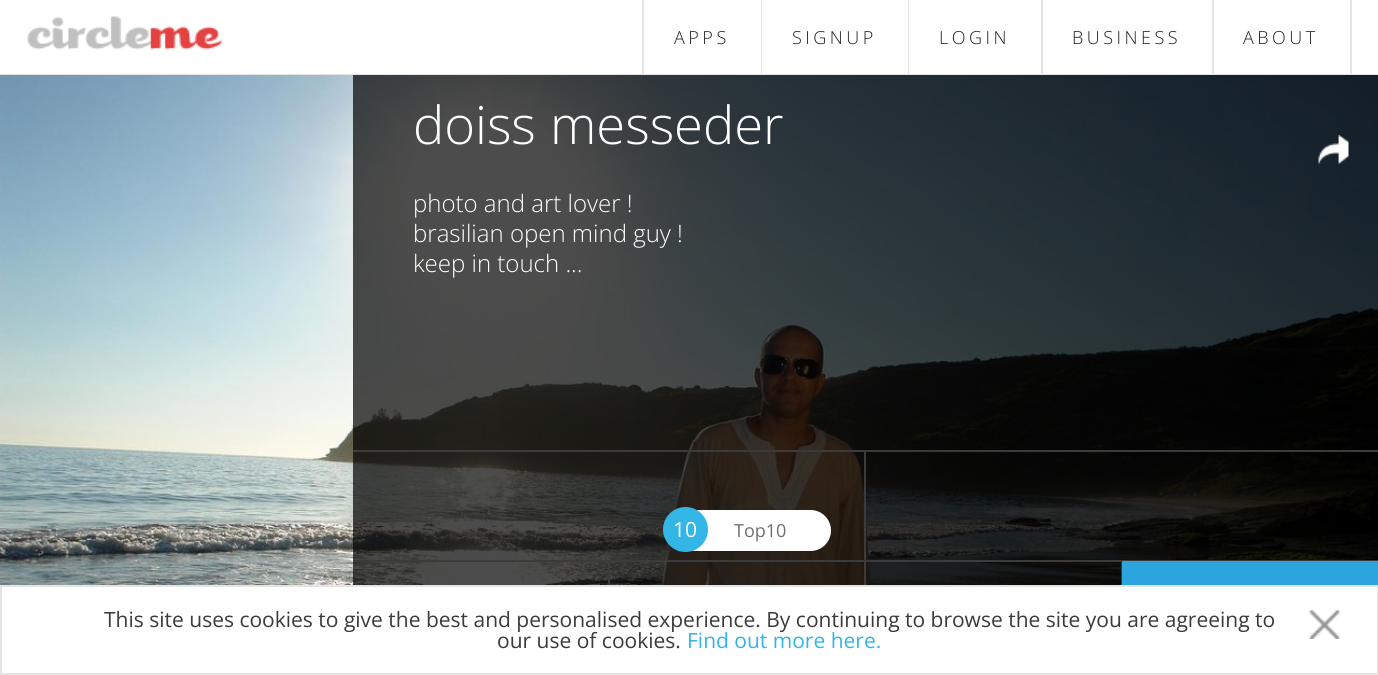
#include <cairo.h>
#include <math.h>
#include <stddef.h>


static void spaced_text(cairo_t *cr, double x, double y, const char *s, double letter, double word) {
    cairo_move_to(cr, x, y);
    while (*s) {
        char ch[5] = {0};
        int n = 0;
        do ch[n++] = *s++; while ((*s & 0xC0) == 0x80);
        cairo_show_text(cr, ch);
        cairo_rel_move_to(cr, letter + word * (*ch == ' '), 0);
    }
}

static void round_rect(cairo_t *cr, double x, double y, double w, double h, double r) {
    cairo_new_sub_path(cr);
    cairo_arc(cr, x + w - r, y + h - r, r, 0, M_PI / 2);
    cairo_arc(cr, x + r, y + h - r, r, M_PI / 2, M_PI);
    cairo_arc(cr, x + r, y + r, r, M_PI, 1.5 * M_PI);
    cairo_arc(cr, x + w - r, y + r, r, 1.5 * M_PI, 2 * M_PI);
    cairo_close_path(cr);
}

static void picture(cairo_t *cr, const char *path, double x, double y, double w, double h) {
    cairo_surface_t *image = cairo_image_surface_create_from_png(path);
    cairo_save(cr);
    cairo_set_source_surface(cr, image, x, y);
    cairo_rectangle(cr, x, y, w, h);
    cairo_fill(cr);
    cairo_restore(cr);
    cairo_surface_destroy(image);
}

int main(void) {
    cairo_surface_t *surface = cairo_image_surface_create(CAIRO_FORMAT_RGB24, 1378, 675);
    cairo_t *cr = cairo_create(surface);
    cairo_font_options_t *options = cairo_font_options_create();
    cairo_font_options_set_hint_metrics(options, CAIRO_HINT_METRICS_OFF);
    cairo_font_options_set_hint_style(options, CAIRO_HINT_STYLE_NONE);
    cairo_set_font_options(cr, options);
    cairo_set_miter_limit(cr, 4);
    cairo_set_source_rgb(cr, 1, 1, 1);
    cairo_paint(cr);
    cairo_set_source_rgb(cr, 0.894, 0.894, 0.894);
    cairo_rectangle(cr, 0, 74, 1378, 1);
    cairo_fill(cr);
    picture(cr, "img1.png", 27, 16, 195, 34);
    cairo_rectangle(cr, 642, 0, 2, 74);
    cairo_fill(cr);
    cairo_select_font_face(cr, "Open Sans Light", CAIRO_FONT_SLANT_NORMAL, CAIRO_FONT_WEIGHT_NORMAL);
    cairo_set_font_size(cr, 18);
    cairo_set_source_rgb(cr, 0.133, 0.133, 0.133);
    spaced_text(cr, 674, 44, "APPS", 3.5, 0);
    cairo_set_source_rgb(cr, 0.894, 0.894, 0.894);
    cairo_rectangle(cr, 761, 0, 1, 74);
    cairo_fill(cr);
    cairo_set_source_rgb(cr, 0.133, 0.133, 0.133);
    spaced_text(cr, 792, 44, "SIGNUP", 3.5, 0);
    cairo_set_source_rgb(cr, 0.894, 0.894, 0.894);
    cairo_rectangle(cr, 908, 0, 1, 74);
    cairo_fill(cr);
    cairo_set_source_rgb(cr, 0.133, 0.133, 0.133);
    spaced_text(cr, 939, 44, "LOGIN", 3.5, 0);
    cairo_set_source_rgb(cr, 0.894, 0.894, 0.894);
    cairo_rectangle(cr, 1041, 0, 2, 74);
    cairo_fill(cr);
    cairo_set_source_rgb(cr, 0.133, 0.133, 0.133);
    spaced_text(cr, 1072, 44, "BUSINESS", 3.5, 0);
    cairo_set_source_rgb(cr, 0.894, 0.894, 0.894);
    cairo_rectangle(cr, 1350, 0, 2, 74);
    cairo_fill(cr);
    cairo_rectangle(cr, 1212, 0, 2, 74);
    cairo_fill(cr);
    cairo_set_source_rgb(cr, 0.133, 0.133, 0.133);
    spaced_text(cr, 1243, 44, "ABOUT", 3.5, 0);
    picture(cr, "img2.png", 0, 75, 1378, 510);
    cairo_set_source_rgba(cr, 0, 0, 0, 0.7);
    cairo_rectangle(cr, 353, 75, 1025, 510);
    cairo_fill(cr);
    cairo_set_font_size(cr, 52.5);
    cairo_set_source_rgb(cr, 1, 1, 1);
    cairo_move_to(cr, 413, 144);
    cairo_show_text(cr, "doiss");
    cairo_move_to(cr, 550, 144);
    cairo_show_text(cr, "messeder");
    cairo_set_font_size(cr, 24);
    cairo_move_to(cr, 413, 212);
    cairo_show_text(cr, "photo and art lover !");
    cairo_move_to(cr, 413, 242);
    cairo_show_text(cr, "brasilian open mind guy !");
    cairo_move_to(cr, 413, 272);
    cairo_show_text(cr, "keep in touch ...");
    picture(cr, "img3.png", 1318, 135, 31, 29);
    cairo_set_source_rgb(cr, 0.231, 0.231, 0.231);
    cairo_rectangle(cr, 353, 450, 1025, 2);
    cairo_fill(cr);
    cairo_rectangle(cr, 864, 452, 2, 108);
    cairo_fill(cr);
    cairo_rectangle(cr, 353, 560, 256, 2);
    cairo_fill(cr);
    cairo_rectangle(cr, 608, 560, 2, 25);
    cairo_fill(cr);
    cairo_rectangle(cr, 609, 560, 513, 2);
    cairo_fill(cr);
    cairo_rectangle(cr, 864, 560, 2, 25);
    cairo_fill(cr);
    cairo_rectangle(cr, 1121, 560, 2, 25);
    cairo_fill(cr);
    cairo_rectangle(cr, 1122, 560, 256, 2);
    cairo_fill(cr);
    cairo_set_source_rgb(cr, 0.173, 0.647, 0.875);
    round_rect(cr, 1122, 561, 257, 105, 1.5);
    cairo_fill(cr);
    cairo_set_source_rgb(cr, 1, 1, 1);
    round_rect(cr, 666, 510, 165, 41, 20.5);
    cairo_fill(cr);
    cairo_set_source_rgb(cr, 0.2, 0.71, 0.898);
    cairo_arc(cr, 685.5, 529.5, 22.5, 0, 2 * M_PI);
    cairo_fill(cr);
    cairo_select_font_face(cr, "Open Sans", CAIRO_FONT_SLANT_NORMAL, CAIRO_FONT_WEIGHT_NORMAL);
    cairo_set_font_size(cr, 21);
    cairo_set_source_rgb(cr, 1, 1, 1);
    cairo_move_to(cr, 673, 537);
    cairo_show_text(cr, "10");
    cairo_set_font_size(cr, 18);
    cairo_set_source_rgb(cr, 0.431, 0.431, 0.431);
    cairo_move_to(cr, 734, 537);
    cairo_show_text(cr, "Top10");
    cairo_set_source_rgb(cr, 1, 1, 1);
    cairo_rectangle(cr, 1122, 587, 255, 79);
    cairo_fill(cr);
    cairo_rectangle(cr, 1, 586, 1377, 88);
    cairo_set_source_rgb(cr, 0.894, 0.894, 0.894);
    cairo_stroke(cr);
    cairo_set_font_size(cr, 21);
    cairo_set_source_rgb(cr, 0.231, 0.231, 0.231);
    cairo_move_to(cr, 104, 627);
    cairo_show_text(cr, "This site uses cookies to give the best and personalised experience. By continuing to browse the site you are agreeing to");
    picture(cr, "img4.png", 1309, 609, 31, 30);
    cairo_move_to(cr, 497, 648);
    cairo_show_text(cr, "our use of cookies.");
    cairo_set_source_rgb(cr, 0.2, 0.71, 0.898);
    cairo_move_to(cr, 687, 648);
    cairo_show_text(cr, "Find out more here.");
    cairo_surface_write_to_png(surface, "page.png");
    cairo_font_options_destroy(options);
    cairo_destroy(cr);
    cairo_surface_destroy(surface);
    return 0;
}
